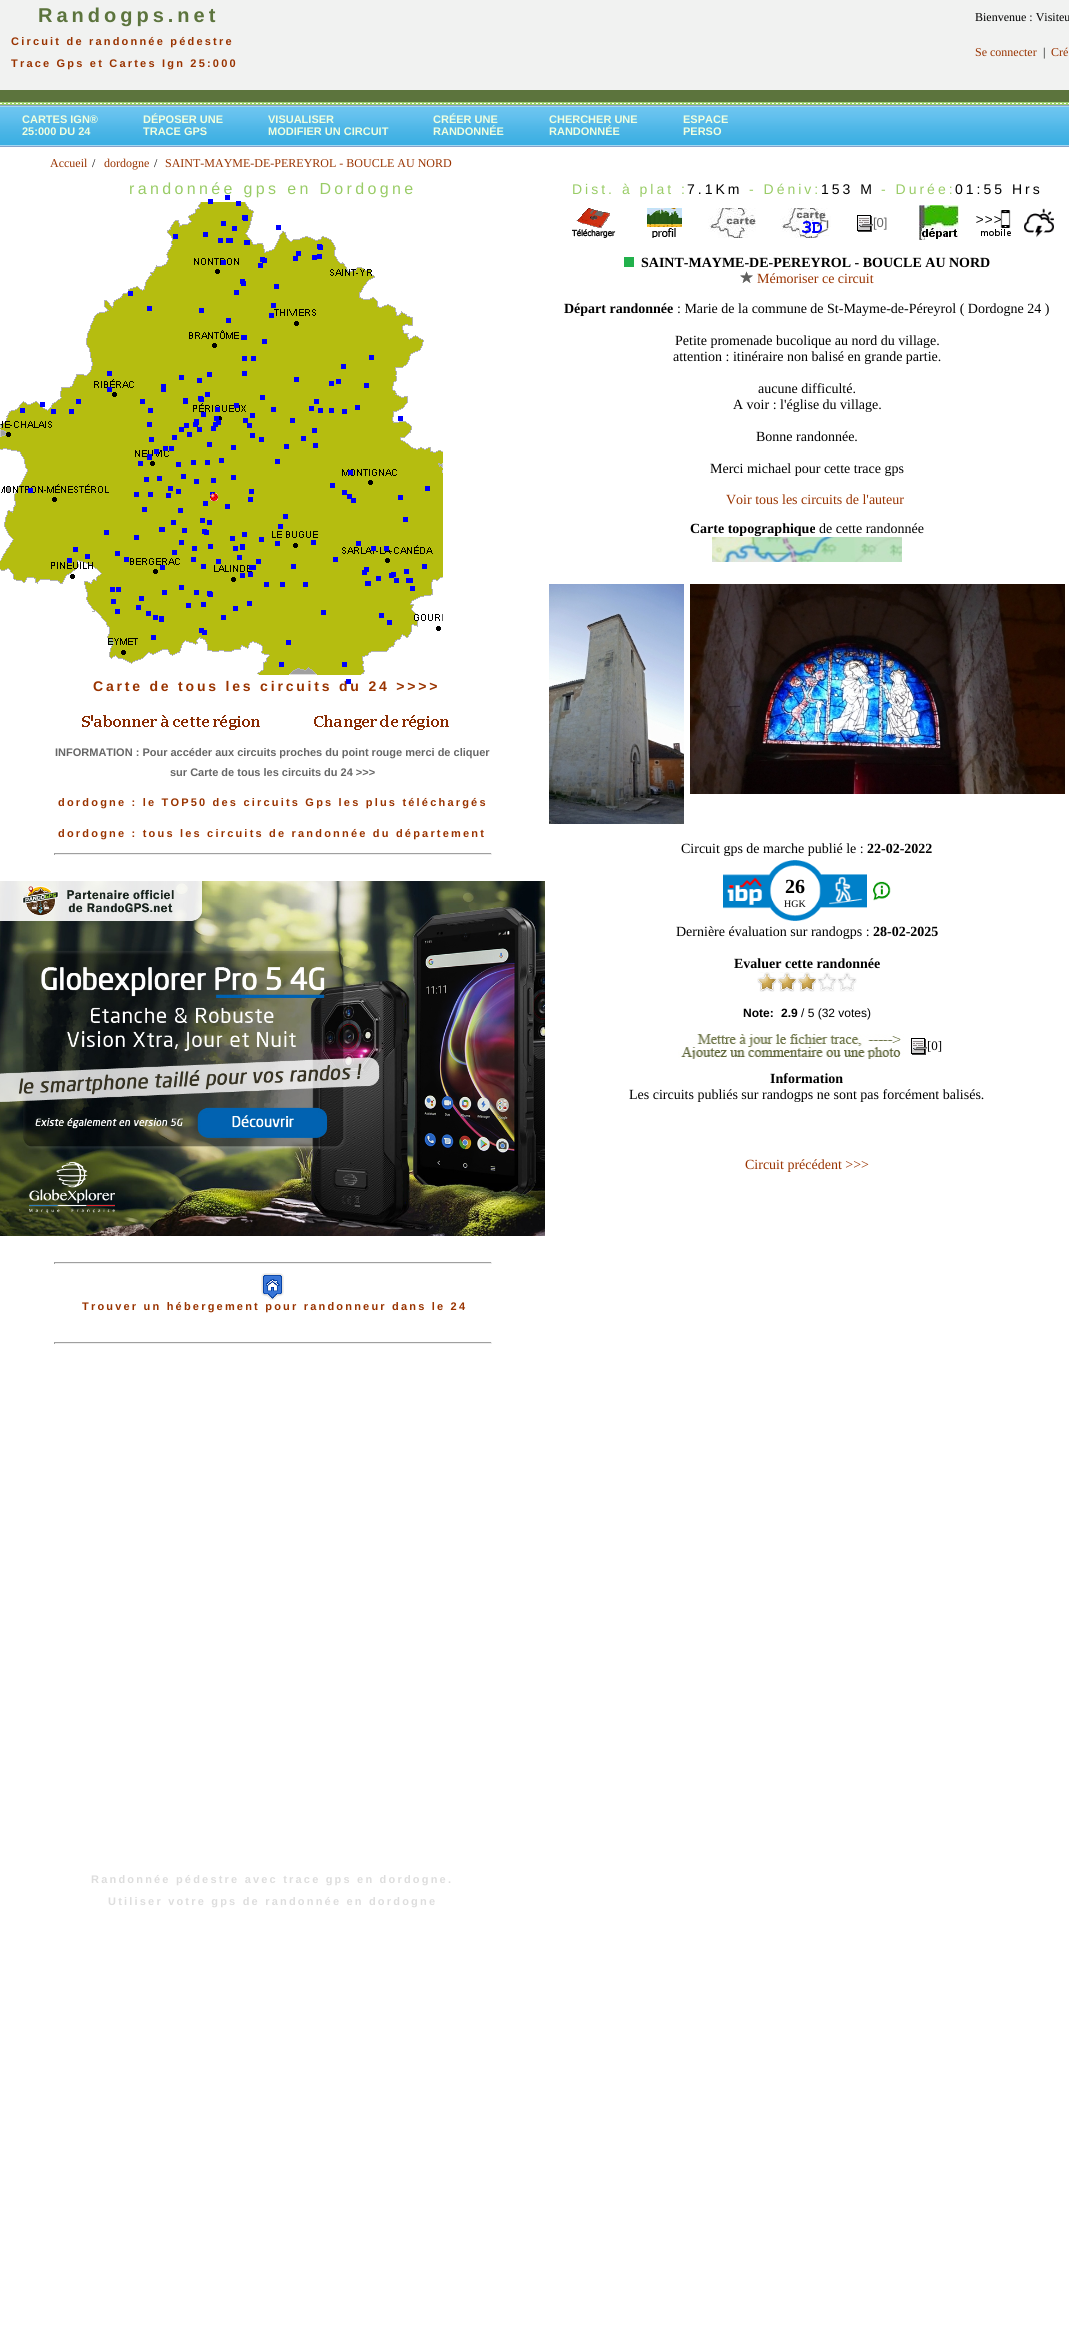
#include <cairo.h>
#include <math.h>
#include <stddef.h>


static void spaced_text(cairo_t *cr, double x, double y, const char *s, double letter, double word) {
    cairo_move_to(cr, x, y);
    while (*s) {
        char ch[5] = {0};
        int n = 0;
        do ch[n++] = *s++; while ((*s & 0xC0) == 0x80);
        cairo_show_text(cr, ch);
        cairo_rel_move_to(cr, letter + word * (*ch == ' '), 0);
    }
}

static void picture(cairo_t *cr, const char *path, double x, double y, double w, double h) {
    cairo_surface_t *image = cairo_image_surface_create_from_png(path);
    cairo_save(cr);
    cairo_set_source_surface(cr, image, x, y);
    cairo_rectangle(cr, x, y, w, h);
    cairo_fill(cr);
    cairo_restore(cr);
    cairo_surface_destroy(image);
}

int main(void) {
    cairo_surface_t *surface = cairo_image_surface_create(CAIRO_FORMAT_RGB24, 1069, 2346);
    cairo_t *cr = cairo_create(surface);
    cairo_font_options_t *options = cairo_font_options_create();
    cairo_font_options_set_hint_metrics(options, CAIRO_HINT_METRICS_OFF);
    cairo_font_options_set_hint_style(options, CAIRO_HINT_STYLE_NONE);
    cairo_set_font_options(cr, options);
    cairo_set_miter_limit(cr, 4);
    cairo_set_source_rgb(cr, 1, 1, 1);
    cairo_paint(cr);
    cairo_set_source_rgb(cr, 0.945, 0.949, 0.945);
    cairo_rectangle(cr, 0, 0, 1069, 90);
    cairo_fill(cr);
    cairo_select_font_face(cr, "Liberation Sans", CAIRO_FONT_SLANT_NORMAL, CAIRO_FONT_WEIGHT_BOLD);
    cairo_set_font_size(cr, 20);
    cairo_set_source_rgb(cr, 0.361, 0.455, 0.239);
    spaced_text(cr, 38, 22, "Randogps.net", 4, 0);
    cairo_set_font_size(cr, 11);
    cairo_set_source_rgb(cr, 0.6, 0.2, 0);
    spaced_text(cr, 11, 45, "Circuit de randonnée pédestre", 2.2, 0);
    spaced_text(cr, 11, 67, "Trace Gps et Cartes Ign 25:000", 2.2, 0);
    cairo_select_font_face(cr, "Liberation Serif", CAIRO_FONT_SLANT_NORMAL, CAIRO_FONT_WEIGHT_NORMAL);
    cairo_set_font_size(cr, 12);
    cairo_set_source_rgb(cr, 0, 0, 0);
    cairo_move_to(cr, 975, 21);
    cairo_show_text(cr, "Bienvenue : Visiteu");
    cairo_set_source_rgb(cr, 0.6, 0.2, 0);
    cairo_move_to(cr, 975, 56);
    cairo_show_text(cr, "Se connecter");
    cairo_set_source_rgb(cr, 0, 0, 0);
    cairo_move_to(cr, 1043, 56);
    cairo_show_text(cr, "|");
    cairo_set_source_rgb(cr, 0.6, 0.2, 0);
    cairo_move_to(cr, 1051, 56);
    cairo_show_text(cr, "Cré");
    cairo_set_source_rgb(cr, 0.361, 0.455, 0.239);
    cairo_rectangle(cr, 0, 90, 1069, 12);
    cairo_fill(cr);
    cairo_set_source_rgb(cr, 0.6, 0.8, 0.4);
    cairo_rectangle(cr, 0, 102, 1069, 3);
    cairo_fill(cr);
    picture(cr, "img1.png", 0, 103, 1069, 1);
    picture(cr, "img2.png", 0, 105, 1069, 42);
    cairo_select_font_face(cr, "Liberation Sans", CAIRO_FONT_SLANT_NORMAL, CAIRO_FONT_WEIGHT_BOLD);
    cairo_set_font_size(cr, 11);
    cairo_set_source_rgb(cr, 0.933, 1, 0.875);
    cairo_move_to(cr, 22, 123);
    cairo_show_text(cr, "CARTES IGN®");
    cairo_move_to(cr, 22, 135);
    cairo_show_text(cr, "25:000 DU 24");
    cairo_move_to(cr, 143, 123);
    cairo_show_text(cr, "DÉPOSER UNE");
    cairo_move_to(cr, 143, 135);
    cairo_show_text(cr, "TRACE GPS");
    cairo_move_to(cr, 268, 123);
    cairo_show_text(cr, "VISUALISER");
    cairo_move_to(cr, 268, 135);
    cairo_show_text(cr, "MODIFIER UN CIRCUIT");
    cairo_move_to(cr, 433, 123);
    cairo_show_text(cr, "CRÉER UNE");
    cairo_move_to(cr, 433, 135);
    cairo_show_text(cr, "RANDONNÉE");
    cairo_move_to(cr, 549, 123);
    cairo_show_text(cr, "CHERCHER UNE");
    cairo_move_to(cr, 549, 135);
    cairo_show_text(cr, "RANDONNÉE");
    cairo_move_to(cr, 683, 123);
    cairo_show_text(cr, "ESPACE");
    cairo_move_to(cr, 683, 135);
    cairo_show_text(cr, "PERSO");
    cairo_select_font_face(cr, "Liberation Serif", CAIRO_FONT_SLANT_NORMAL, CAIRO_FONT_WEIGHT_NORMAL);
    cairo_set_font_size(cr, 12);
    cairo_set_source_rgb(cr, 0.6, 0.2, 0);
    cairo_move_to(cr, 50, 167);
    cairo_show_text(cr, "Accueil");
    cairo_set_source_rgb(cr, 0, 0, 0);
    cairo_move_to(cr, 92, 167);
    cairo_show_text(cr, "/");
    cairo_set_source_rgb(cr, 0.6, 0.2, 0);
    cairo_move_to(cr, 104, 167);
    cairo_show_text(cr, "dordogne");
    cairo_set_source_rgb(cr, 0, 0, 0);
    cairo_move_to(cr, 154, 167);
    cairo_show_text(cr, "/");
    cairo_set_source_rgb(cr, 0.6, 0.2, 0);
    cairo_move_to(cr, 165, 167);
    cairo_show_text(cr, "SAINT-MAYME-DE-PEREYROL - BOUCLE AU NORD");
    cairo_select_font_face(cr, "Liberation Sans", CAIRO_FONT_SLANT_NORMAL, CAIRO_FONT_WEIGHT_NORMAL);
    cairo_set_font_size(cr, 16);
    cairo_set_source_rgb(cr, 0.6, 0.8, 0.4);
    spaced_text(cr, 129, 194, "randonnée gps en Dordogne", 3.35, 0);
    cairo_set_source_rgb(cr, 0, 0, 1);
    cairo_rectangle(cr, 225, 195, 5, 5);
    cairo_fill(cr);
    picture(cr, "img3.png", 0, 202, 443, 473);
    cairo_rectangle(cr, 208, 199, 5, 5);
    cairo_fill(cr);
    cairo_rectangle(cr, 236, 201, 5, 5);
    cairo_fill(cr);
    cairo_rectangle(cr, 242, 215, 5, 5);
    cairo_fill(cr);
    cairo_rectangle(cr, 243, 215, 5, 6);
    cairo_fill(cr);
    cairo_rectangle(cr, 221, 221, 5, 5);
    cairo_fill(cr);
    cairo_rectangle(cr, 232, 226, 5, 5);
    cairo_fill(cr);
    cairo_rectangle(cr, 276, 225, 5, 5);
    cairo_fill(cr);
    cairo_rectangle(cr, 173, 234, 5, 5);
    cairo_fill(cr);
    cairo_rectangle(cr, 203, 232, 5, 5);
    cairo_fill(cr);
    cairo_rectangle(cr, 218, 238, 5, 5);
    cairo_fill(cr);
    cairo_rectangle(cr, 226, 238, 7, 5);
    cairo_fill(cr);
    cairo_rectangle(cr, 244, 240, 6, 5);
    cairo_fill(cr);
    cairo_rectangle(cr, 317, 244, 5, 5);
    cairo_fill(cr);
    cairo_rectangle(cr, 318, 245, 5, 5);
    cairo_fill(cr);
    cairo_rectangle(cr, 296, 251, 5, 5);
    cairo_fill(cr);
    cairo_rectangle(cr, 262, 258, 5, 5);
    cairo_fill(cr);
    cairo_rectangle(cr, 260, 257, 5, 5);
    cairo_fill(cr);
    cairo_rectangle(cr, 293, 256, 5, 5);
    cairo_fill(cr);
    cairo_rectangle(cr, 312, 255, 5, 5);
    cairo_fill(cr);
    cairo_rectangle(cr, 317, 254, 5, 5);
    cairo_fill(cr);
    cairo_rectangle(cr, 221, 260, 5, 5);
    cairo_fill(cr);
    cairo_rectangle(cr, 258, 263, 5, 5);
    cairo_fill(cr);
    cairo_rectangle(cr, 241, 281, 5, 5);
    cairo_fill(cr);
    cairo_rectangle(cr, 240, 279, 5, 5);
    cairo_fill(cr);
    cairo_rectangle(cr, 274, 284, 5, 5);
    cairo_fill(cr);
    cairo_rectangle(cr, 128, 291, 5, 5);
    cairo_fill(cr);
    cairo_rectangle(cr, 234, 290, 5, 5);
    cairo_fill(cr);
    cairo_rectangle(cr, 271, 303, 5, 5);
    cairo_fill(cr);
    cairo_rectangle(cr, 147, 306, 5, 5);
    cairo_fill(cr);
    cairo_rectangle(cr, 199, 308, 5, 5);
    cairo_fill(cr);
    cairo_rectangle(cr, 269, 313, 5, 5);
    cairo_fill(cr);
    cairo_rectangle(cr, 226, 318, 5, 5);
    cairo_fill(cr);
    cairo_rectangle(cr, 241, 335, 6, 5);
    cairo_fill(cr);
    cairo_rectangle(cr, 262, 339, 5, 5);
    cairo_fill(cr);
    cairo_rectangle(cr, 242, 356, 5, 5);
    cairo_fill(cr);
    cairo_rectangle(cr, 251, 356, 5, 5);
    cairo_fill(cr);
    cairo_rectangle(cr, 369, 355, 5, 5);
    cairo_fill(cr);
    cairo_rectangle(cr, 341, 364, 5, 5);
    cairo_fill(cr);
    cairo_rectangle(cr, 107, 371, 5, 5);
    cairo_fill(cr);
    cairo_rectangle(cr, 207, 372, 5, 5);
    cairo_fill(cr);
    cairo_rectangle(cr, 242, 371, 5, 5);
    cairo_fill(cr);
    cairo_rectangle(cr, 107, 387, 5, 5);
    cairo_fill(cr);
    cairo_rectangle(cr, 161, 384, 5, 8);
    cairo_fill(cr);
    cairo_rectangle(cr, 179, 375, 5, 5);
    cairo_fill(cr);
    cairo_rectangle(cr, 197, 378, 5, 5);
    cairo_fill(cr);
    cairo_rectangle(cr, 294, 377, 5, 5);
    cairo_fill(cr);
    cairo_rectangle(cr, 329, 381, 5, 5);
    cairo_fill(cr);
    cairo_rectangle(cr, 336, 379, 5, 5);
    cairo_fill(cr);
    cairo_rectangle(cr, 364, 383, 5, 5);
    cairo_fill(cr);
    cairo_rectangle(cr, 205, 392, 5, 5);
    cairo_fill(cr);
    cairo_rectangle(cr, 199, 397, 5, 5);
    cairo_fill(cr);
    cairo_rectangle(cr, 198, 396, 5, 5);
    cairo_fill(cr);
    cairo_rectangle(cr, 260, 395, 5, 5);
    cairo_fill(cr);
    cairo_rectangle(cr, 76, 399, 5, 5);
    cairo_fill(cr);
    cairo_rectangle(cr, 140, 399, 5, 5);
    cairo_fill(cr);
    cairo_rectangle(cr, 183, 398, 5, 6);
    cairo_fill(cr);
    cairo_rectangle(cr, 314, 399, 5, 5);
    cairo_fill(cr);
    cairo_rectangle(cr, 20, 408, 5, 5);
    cairo_fill(cr);
    cairo_rectangle(cr, 40, 402, 5, 5);
    cairo_fill(cr);
    cairo_rectangle(cr, 51, 409, 5, 5);
    cairo_fill(cr);
    cairo_rectangle(cr, 69, 409, 5, 5);
    cairo_fill(cr);
    cairo_rectangle(cr, 148, 408, 5, 5);
    cairo_fill(cr);
    cairo_rectangle(cr, 215, 407, 5, 5);
    cairo_fill(cr);
    cairo_rectangle(cr, 234, 403, 5, 5);
    cairo_fill(cr);
    cairo_rectangle(cr, 271, 407, 5, 5);
    cairo_fill(cr);
    cairo_rectangle(cr, 309, 406, 5, 5);
    cairo_fill(cr);
    cairo_rectangle(cr, 318, 408, 5, 5);
    cairo_fill(cr);
    cairo_rectangle(cr, 329, 408, 5, 5);
    cairo_fill(cr);
    cairo_rectangle(cr, 342, 409, 5, 5);
    cairo_fill(cr);
    cairo_rectangle(cr, 355, 405, 5, 5);
    cairo_fill(cr);
    cairo_rectangle(cr, 201, 412, 5, 5);
    cairo_fill(cr);
    cairo_rectangle(cr, 250, 413, 5, 5);
    cairo_fill(cr);
    cairo_rectangle(cr, 194, 424, 5, 1);
    cairo_fill(cr);
    cairo_rectangle(cr, 193, 422, 5, 5);
    cairo_fill(cr);
    cairo_rectangle(cr, 194, 419, 5, 5);
    cairo_fill(cr);
    cairo_rectangle(cr, 214, 416, 5, 5);
    cairo_fill(cr);
    cairo_rectangle(cr, 243, 418, 5, 5);
    cairo_fill(cr);
    cairo_rectangle(cr, 290, 418, 5, 5);
    cairo_fill(cr);
    cairo_rectangle(cr, 398, 416, 5, 5);
    cairo_fill(cr);
    cairo_rectangle(cr, 147, 422, 5, 5);
    cairo_fill(cr);
    cairo_rectangle(cr, 184, 423, 5, 5);
    cairo_fill(cr);
    cairo_rectangle(cr, 213, 422, 5, 5);
    cairo_fill(cr);
    cairo_rectangle(cr, 216, 420, 5, 5);
    cairo_fill(cr);
    cairo_rectangle(cr, 247, 423, 5, 5);
    cairo_fill(cr);
    cairo_rectangle(cr, 179, 427, 5, 5);
    cairo_fill(cr);
    cairo_rectangle(cr, 197, 427, 5, 5);
    cairo_fill(cr);
    cairo_rectangle(cr, 211, 426, 5, 5);
    cairo_fill(cr);
    cairo_rectangle(cr, 312, 428, 5, 5);
    cairo_fill(cr);
    cairo_rectangle(cr, 149, 437, 5, 5);
    cairo_fill(cr);
    cairo_rectangle(cr, 172, 435, 5, 5);
    cairo_fill(cr);
    cairo_rectangle(cr, 187, 432, 5, 5);
    cairo_fill(cr);
    cairo_rectangle(cr, 250, 433, 5, 5);
    cairo_fill(cr);
    cairo_rectangle(cr, 259, 437, 5, 5);
    cairo_fill(cr);
    cairo_rectangle(cr, 301, 436, 5, 5);
    cairo_fill(cr);
    cairo_rectangle(cr, 163, 446, 5, 5);
    cairo_fill(cr);
    cairo_rectangle(cr, 169, 446, 5, 5);
    cairo_fill(cr);
    cairo_rectangle(cr, 207, 442, 5, 5);
    cairo_fill(cr);
    cairo_rectangle(cr, 231, 445, 5, 5);
    cairo_fill(cr);
    cairo_rectangle(cr, 284, 444, 5, 5);
    cairo_fill(cr);
    cairo_rectangle(cr, 313, 443, 5, 5);
    cairo_fill(cr);
    cairo_rectangle(cr, 154, 449, 5, 5);
    cairo_fill(cr);
    cairo_rectangle(cr, 147, 454, 5, 6);
    cairo_fill(cr);
    cairo_rectangle(cr, 138, 461, 5, 5);
    cairo_fill(cr);
    cairo_rectangle(cr, 176, 462, 5, 5);
    cairo_fill(cr);
    cairo_rectangle(cr, 191, 460, 5, 5);
    cairo_fill(cr);
    cairo_rectangle(cr, 205, 460, 5, 5);
    cairo_fill(cr);
    cairo_rectangle(cr, 219, 458, 5, 5);
    cairo_fill(cr);
    cairo_rectangle(cr, 275, 459, 5, 5);
    cairo_fill(cr);
    cairo_rectangle(cr, 348, 470, 5, 5);
    cairo_fill(cr);
    cairo_rectangle(cr, 144, 477, 5, 5);
    cairo_fill(cr);
    cairo_rectangle(cr, 157, 476, 5, 5);
    cairo_fill(cr);
    cairo_rectangle(cr, 181, 474, 5, 5);
    cairo_fill(cr);
    cairo_rectangle(cr, 194, 479, 5, 5);
    cairo_fill(cr);
    cairo_rectangle(cr, 211, 478, 5, 5);
    cairo_fill(cr);
    cairo_rectangle(cr, 231, 475, 5, 5);
    cairo_fill(cr);
    cairo_rectangle(cr, 330, 483, 5, 5);
    cairo_fill(cr);
    cairo_rectangle(cr, 28, 488, 5, 5);
    cairo_fill(cr);
    cairo_rectangle(cr, 134, 492, 5, 5);
    cairo_fill(cr);
    cairo_rectangle(cr, 148, 492, 5, 5);
    cairo_fill(cr);
    cairo_rectangle(cr, 168, 486, 5, 5);
    cairo_fill(cr);
    cairo_rectangle(cr, 176, 489, 5, 5);
    cairo_fill(cr);
    cairo_rectangle(cr, 210, 492, 5, 5);
    cairo_fill(cr);
    cairo_rectangle(cr, 249, 489, 5, 5);
    cairo_fill(cr);
    cairo_rectangle(cr, 342, 490, 5, 5);
    cairo_fill(cr);
    cairo_rectangle(cr, 425, 486, 5, 5);
    cairo_fill(cr);
    cairo_rectangle(cr, 166, 493, 5, 5);
    cairo_fill(cr);
    picture(cr, "img4.png", 210, 493, 8, 8);
    cairo_rectangle(cr, 248, 497, 5, 5);
    cairo_fill(cr);
    cairo_rectangle(cr, 347, 494, 5, 5);
    cairo_fill(cr);
    cairo_rectangle(cr, 351, 498, 5, 5);
    cairo_fill(cr);
    cairo_rectangle(cr, 398, 495, 5, 5);
    cairo_fill(cr);
    cairo_rectangle(cr, 203, 501, 5, 5);
    cairo_fill(cr);
    cairo_rectangle(cr, 225, 504, 5, 5);
    cairo_fill(cr);
    cairo_rectangle(cr, 142, 507, 5, 5);
    cairo_fill(cr);
    cairo_rectangle(cr, 178, 508, 5, 5);
    cairo_fill(cr);
    cairo_rectangle(cr, 283, 514, 5, 5);
    cairo_fill(cr);
    cairo_rectangle(cr, 171, 520, 5, 5);
    cairo_fill(cr);
    cairo_rectangle(cr, 200, 518, 5, 5);
    cairo_fill(cr);
    cairo_rectangle(cr, 207, 520, 5, 5);
    cairo_fill(cr);
    cairo_rectangle(cr, 403, 517, 5, 5);
    cairo_fill(cr);
    cairo_rectangle(cr, 278, 524, 5, 5);
    cairo_fill(cr);
    cairo_rectangle(cr, 104, 530, 5, 5);
    cairo_fill(cr);
    cairo_rectangle(cr, 159, 527, 6, 5);
    cairo_fill(cr);
    cairo_rectangle(cr, 182, 528, 5, 5);
    cairo_fill(cr);
    cairo_rectangle(cr, 202, 529, 5, 5);
    cairo_fill(cr);
    cairo_rectangle(cr, 204, 530, 5, 5);
    cairo_fill(cr);
    cairo_rectangle(cr, 242, 532, 5, 5);
    cairo_fill(cr);
    cairo_rectangle(cr, 134, 535, 5, 5);
    cairo_fill(cr);
    cairo_rectangle(cr, 230, 536, 5, 5);
    cairo_fill(cr);
    cairo_rectangle(cr, 259, 537, 5, 5);
    cairo_fill(cr);
    cairo_rectangle(cr, 179, 540, 5, 5);
    cairo_fill(cr);
    cairo_rectangle(cr, 275, 541, 5, 5);
    cairo_fill(cr);
    cairo_rectangle(cr, 311, 540, 5, 5);
    cairo_fill(cr);
    cairo_rectangle(cr, 356, 541, 5, 5);
    cairo_fill(cr);
    cairo_rectangle(cr, 73, 547, 5, 5);
    cairo_fill(cr);
    cairo_rectangle(cr, 192, 546, 5, 5);
    cairo_fill(cr);
    cairo_rectangle(cr, 208, 544, 5, 5);
    cairo_fill(cr);
    cairo_rectangle(cr, 233, 546, 5, 5);
    cairo_fill(cr);
    cairo_rectangle(cr, 240, 544, 5, 6);
    cairo_fill(cr);
    cairo_rectangle(cr, 371, 546, 5, 5);
    cairo_fill(cr);
    cairo_rectangle(cr, 384, 546, 5, 5);
    cairo_fill(cr);
    cairo_rectangle(cr, 115, 551, 5, 5);
    cairo_fill(cr);
    cairo_rectangle(cr, 172, 550, 5, 5);
    cairo_fill(cr);
    cairo_rectangle(cr, 67, 558, 5, 5);
    cairo_fill(cr);
    cairo_rectangle(cr, 85, 554, 5, 5);
    cairo_fill(cr);
    cairo_rectangle(cr, 124, 557, 5, 5);
    cairo_fill(cr);
    cairo_rectangle(cr, 191, 557, 5, 5);
    cairo_fill(cr);
    cairo_rectangle(cr, 216, 559, 5, 5);
    cairo_fill(cr);
    cairo_rectangle(cr, 237, 555, 5, 5);
    cairo_fill(cr);
    cairo_rectangle(cr, 256, 559, 5, 5);
    cairo_fill(cr);
    cairo_rectangle(cr, 333, 557, 5, 5);
    cairo_fill(cr);
    cairo_rectangle(cr, 160, 565, 5, 5);
    cairo_fill(cr);
    cairo_rectangle(cr, 201, 564, 5, 5);
    cairo_fill(cr);
    cairo_rectangle(cr, 249, 565, 7, 5);
    cairo_fill(cr);
    cairo_rectangle(cr, 291, 564, 5, 5);
    cairo_fill(cr);
    cairo_rectangle(cr, 364, 567, 5, 5);
    cairo_fill(cr);
    cairo_rectangle(cr, 404, 569, 5, 5);
    cairo_fill(cr);
    cairo_rectangle(cr, 422, 564, 5, 5);
    cairo_fill(cr);
    cairo_rectangle(cr, 240, 573, 5, 5);
    cairo_fill(cr);
    cairo_rectangle(cr, 248, 572, 5, 5);
    cairo_fill(cr);
    cairo_rectangle(cr, 362, 570, 5, 5);
    cairo_fill(cr);
    cairo_rectangle(cr, 389, 573, 5, 5);
    cairo_fill(cr);
    cairo_rectangle(cr, 391, 572, 5, 5);
    cairo_fill(cr);
    cairo_rectangle(cr, 376, 576, 5, 5);
    cairo_fill(cr);
    cairo_rectangle(cr, 394, 578, 5, 5);
    cairo_fill(cr);
    cairo_rectangle(cr, 406, 578, 7, 5);
    cairo_fill(cr);
    cairo_rectangle(cr, 264, 582, 5, 5);
    cairo_fill(cr);
    cairo_rectangle(cr, 280, 582, 5, 5);
    cairo_fill(cr);
    cairo_rectangle(cr, 303, 582, 5, 5);
    cairo_fill(cr);
    cairo_rectangle(cr, 365, 581, 6, 5);
    cairo_fill(cr);
    cairo_rectangle(cr, 110, 587, 5, 5);
    cairo_fill(cr);
    cairo_rectangle(cr, 116, 587, 5, 5);
    cairo_fill(cr);
    cairo_rectangle(cr, 179, 585, 5, 5);
    cairo_fill(cr);
    cairo_rectangle(cr, 410, 586, 5, 5);
    cairo_fill(cr);
    cairo_rectangle(cr, 162, 590, 5, 5);
    cairo_fill(cr);
    cairo_rectangle(cr, 194, 590, 5, 5);
    cairo_fill(cr);
    cairo_rectangle(cr, 208, 592, 5, 5);
    cairo_fill(cr);
    cairo_rectangle(cr, 207, 591, 5, 5);
    cairo_fill(cr);
    cairo_rectangle(cr, 139, 596, 5, 5);
    cairo_fill(cr);
    cairo_rectangle(cr, 111, 599, 5, 5);
    cairo_fill(cr);
    cairo_rectangle(cr, 136, 605, 5, 5);
    cairo_fill(cr);
    cairo_rectangle(cr, 186, 603, 5, 5);
    cairo_fill(cr);
    cairo_rectangle(cr, 201, 602, 5, 5);
    cairo_fill(cr);
    cairo_rectangle(cr, 233, 606, 5, 5);
    cairo_fill(cr);
    cairo_rectangle(cr, 247, 601, 5, 5);
    cairo_fill(cr);
    cairo_rectangle(cr, 115, 609, 5, 5);
    cairo_fill(cr);
    cairo_rectangle(cr, 146, 611, 5, 5);
    cairo_fill(cr);
    cairo_rectangle(cr, 153, 615, 5, 5);
    cairo_fill(cr);
    cairo_rectangle(cr, 159, 616, 5, 6);
    cairo_fill(cr);
    cairo_rectangle(cr, 221, 615, 5, 5);
    cairo_fill(cr);
    cairo_rectangle(cr, 321, 610, 5, 5);
    cairo_fill(cr);
    cairo_rectangle(cr, 379, 613, 5, 5);
    cairo_fill(cr);
    cairo_rectangle(cr, 387, 620, 5, 5);
    cairo_fill(cr);
    cairo_rectangle(cr, 202, 630, 5, 5);
    cairo_fill(cr);
    cairo_rectangle(cr, 199, 628, 5, 5);
    cairo_fill(cr);
    cairo_rectangle(cr, 151, 635, 5, 5);
    cairo_fill(cr);
    cairo_rectangle(cr, 286, 640, 5, 5);
    cairo_fill(cr);
    cairo_rectangle(cr, 279, 662, 5, 5);
    cairo_fill(cr);
    cairo_rectangle(cr, 342, 662, 5, 5);
    cairo_fill(cr);
    cairo_select_font_face(cr, "Liberation Sans", CAIRO_FONT_SLANT_NORMAL, CAIRO_FONT_WEIGHT_BOLD);
    cairo_set_font_size(cr, 14);
    cairo_set_source_rgb(cr, 0.6, 0.2, 0);
    spaced_text(cr, 93, 691, "Carte de tous les circuits du 24 >>>>", 2.8, 0);
    cairo_set_source_rgb(cr, 0, 0, 1);
    cairo_rectangle(cr, 346, 679, 5, 5);
    cairo_fill(cr);
    picture(cr, "img5.png", 82, 715, 178, 15);
    picture(cr, "img6.png", 314, 715, 135, 15);
    cairo_set_font_size(cr, 11);
    cairo_set_source_rgb(cr, 0.4, 0.4, 0.4);
    cairo_move_to(cr, 55, 756);
    cairo_show_text(cr, "INFORMATION : Pour accéder aux circuits proches du point rouge merci de cliquer");
    cairo_move_to(cr, 170, 776);
    cairo_show_text(cr, "sur Carte de tous les circuits du 24 >>>");
    cairo_set_source_rgb(cr, 0.6, 0.2, 0);
    spaced_text(cr, 58, 806, "dordogne : le TOP50 des circuits Gps les plus téléchargés", 2.2, 0);
    spaced_text(cr, 58, 837, "dordogne : tous les circuits de randonnée du département", 2.2, 0);
    cairo_set_source_rgb(cr, 0.624, 0.624, 0.624);
    cairo_rectangle(cr, 54, 853, 438, 1);
    cairo_fill(cr);
    cairo_set_source_rgb(cr, 0.933, 0.933, 0.933);
    cairo_rectangle(cr, 491, 853, 1, 2);
    cairo_fill(cr);
    cairo_rectangle(cr, 54, 854, 438, 1);
    cairo_fill(cr);
    cairo_set_source_rgb(cr, 0.624, 0.624, 0.624);
    cairo_rectangle(cr, 54, 853, 1, 2);
    cairo_fill(cr);
    picture(cr, "img7.png", 0, 881, 545, 355);
    cairo_rectangle(cr, 54, 1262, 438, 1);
    cairo_fill(cr);
    cairo_set_source_rgb(cr, 0.933, 0.933, 0.933);
    cairo_rectangle(cr, 491, 1262, 1, 2);
    cairo_fill(cr);
    cairo_rectangle(cr, 54, 1263, 438, 1);
    cairo_fill(cr);
    cairo_set_source_rgb(cr, 0.624, 0.624, 0.624);
    cairo_rectangle(cr, 54, 1262, 1, 2);
    cairo_fill(cr);
    picture(cr, "img8.png", 261, 1273, 23, 27);
    cairo_set_source_rgb(cr, 0.6, 0.2, 0);
    spaced_text(cr, 82, 1310, "Trouver un hébergement pour randonneur dans le 24", 2.2, 0);
    cairo_set_source_rgb(cr, 0.624, 0.624, 0.624);
    cairo_rectangle(cr, 54, 1342, 438, 1);
    cairo_fill(cr);
    cairo_set_source_rgb(cr, 0.933, 0.933, 0.933);
    cairo_rectangle(cr, 491, 1342, 1, 2);
    cairo_fill(cr);
    cairo_rectangle(cr, 54, 1343, 438, 1);
    cairo_fill(cr);
    cairo_set_source_rgb(cr, 0.624, 0.624, 0.624);
    cairo_rectangle(cr, 54, 1342, 1, 2);
    cairo_fill(cr);
    cairo_set_source_rgb(cr, 0.867, 0.867, 0.867);
    spaced_text(cr, 91, 1883, "Randonnée pédestre avec trace gps en dordogne.", 2.2, 0);
    spaced_text(cr, 108, 1905, "Utiliser votre gps de randonnée en dordogne", 2.2, 0);
    cairo_select_font_face(cr, "Liberation Sans", CAIRO_FONT_SLANT_NORMAL, CAIRO_FONT_WEIGHT_NORMAL);
    cairo_set_font_size(cr, 14);
    cairo_set_source_rgb(cr, 0.6, 0.8, 0.4);
    spaced_text(cr, 572, 194, "Dist. à plat :", 3, 0);
    cairo_set_source_rgb(cr, 0, 0, 0);
    spaced_text(cr, 687, 194, "7.1Km", 3, 0);
    cairo_set_source_rgb(cr, 0.6, 0.8, 0.4);
    spaced_text(cr, 749, 194, "- Déniv:", 3, 0);
    cairo_set_source_rgb(cr, 0, 0, 0);
    spaced_text(cr, 821, 194, "153 M", 3, 0);
    cairo_set_source_rgb(cr, 0.6, 0.8, 0.4);
    spaced_text(cr, 881, 194, "- Durée:", 3, 0);
    cairo_set_source_rgb(cr, 0, 0, 0);
    spaced_text(cr, 955, 194, "01:55 Hrs", 3, 0);
    picture(cr, "img9.png", 572, 208, 44, 30);
    picture(cr, "img10.png", 647, 208, 35, 30);
    picture(cr, "img11.png", 708, 208, 48, 30);
    picture(cr, "img12.png", 780, 208, 51, 30);
    picture(cr, "img13.png", 857, 215, 16, 17);
    cairo_set_font_size(cr, 13);
    cairo_set_source_rgb(cr, 0.4, 0.4, 0.4);
    cairo_move_to(cr, 873, 227);
    cairo_show_text(cr, "[0]");
    picture(cr, "img14.png", 919, 205, 40, 35);
    picture(cr, "img15.png", 976, 210, 35, 26);
    picture(cr, "img16.png", 1024, 208, 30, 30);
    cairo_set_source_rgb(cr, 0.133, 0.694, 0.298);
    cairo_rectangle(cr, 624, 257, 10, 10);
    cairo_fill(cr);
    cairo_select_font_face(cr, "Liberation Serif", CAIRO_FONT_SLANT_NORMAL, CAIRO_FONT_WEIGHT_BOLD);
    cairo_set_font_size(cr, 14);
    cairo_set_source_rgb(cr, 0, 0, 0);
    cairo_move_to(cr, 641, 267);
    cairo_show_text(cr, "SAINT-MAYME-DE-PEREYROL - BOUCLE AU NORD");
    picture(cr, "img17.png", 740, 271, 13, 12);
    cairo_select_font_face(cr, "Liberation Serif", CAIRO_FONT_SLANT_NORMAL, CAIRO_FONT_WEIGHT_NORMAL);
    cairo_set_source_rgb(cr, 0.6, 0.2, 0);
    cairo_move_to(cr, 757, 283);
    cairo_show_text(cr, "Mémoriser ce circuit");
    cairo_select_font_face(cr, "Liberation Serif", CAIRO_FONT_SLANT_NORMAL, CAIRO_FONT_WEIGHT_BOLD);
    cairo_set_source_rgb(cr, 0, 0, 0);
    cairo_move_to(cr, 564, 313);
    cairo_show_text(cr, "Départ randonnée");
    cairo_select_font_face(cr, "Liberation Serif", CAIRO_FONT_SLANT_NORMAL, CAIRO_FONT_WEIGHT_NORMAL);
    cairo_move_to(cr, 677, 313);
    cairo_show_text(cr, ": Marie de la commune de St-Mayme-de-Péreyrol ( Dordogne 24 )");
    cairo_move_to(cr, 675, 345);
    cairo_show_text(cr, "Petite promenade bucolique au nord du village.");
    cairo_move_to(cr, 673, 361);
    cairo_show_text(cr, "attention : itinéraire non balisé en grande partie.");
    cairo_move_to(cr, 758, 393);
    cairo_show_text(cr, "aucune difficulté.");
    cairo_move_to(cr, 733, 409);
    cairo_show_text(cr, "A voir : l'église du village.");
    cairo_move_to(cr, 756, 441);
    cairo_show_text(cr, "Bonne randonnée.");
    cairo_move_to(cr, 710, 473);
    cairo_show_text(cr, "Merci michael pour cette trace gps");
    cairo_set_source_rgb(cr, 0.6, 0.2, 0);
    cairo_move_to(cr, 726, 504);
    cairo_show_text(cr, "Voir tous les circuits de l'auteur");
    cairo_select_font_face(cr, "Liberation Serif", CAIRO_FONT_SLANT_NORMAL, CAIRO_FONT_WEIGHT_BOLD);
    cairo_set_source_rgb(cr, 0, 0, 0);
    cairo_move_to(cr, 690, 533);
    cairo_show_text(cr, "Carte topographique");
    cairo_select_font_face(cr, "Liberation Serif", CAIRO_FONT_SLANT_NORMAL, CAIRO_FONT_WEIGHT_NORMAL);
    cairo_move_to(cr, 819, 533);
    cairo_show_text(cr, "de cette randonnée");
    picture(cr, "img18.png", 712, 537, 190, 25);
    picture(cr, "img19.png", 549, 584, 135, 240);
    picture(cr, "img20.png", 690, 584, 375, 210);
    cairo_move_to(cr, 681, 853);
    cairo_show_text(cr, "Circuit gps de marche publié le :");
    cairo_select_font_face(cr, "Liberation Serif", CAIRO_FONT_SLANT_NORMAL, CAIRO_FONT_WEIGHT_BOLD);
    cairo_move_to(cr, 867, 853);
    cairo_show_text(cr, "22-02-2022");
    picture(cr, "img21.png", 723, 860, 144, 61);
    cairo_set_font_size(cr, 20);
    cairo_move_to(cr, 785, 893);
    cairo_show_text(cr, "26");
    cairo_select_font_face(cr, "Liberation Serif", CAIRO_FONT_SLANT_NORMAL, CAIRO_FONT_WEIGHT_NORMAL);
    cairo_set_font_size(cr, 10);
    cairo_move_to(cr, 784, 907);
    cairo_show_text(cr, "HGK");
    picture(cr, "img22.png", 873, 881, 18, 20);
    cairo_set_font_size(cr, 14);
    cairo_move_to(cr, 676, 936);
    cairo_show_text(cr, "Dernière évaluation sur randogps :");
    cairo_select_font_face(cr, "Liberation Serif", CAIRO_FONT_SLANT_NORMAL, CAIRO_FONT_WEIGHT_BOLD);
    cairo_move_to(cr, 873, 936);
    cairo_show_text(cr, "28-02-2025");
    cairo_move_to(cr, 734, 968);
    cairo_show_text(cr, "Evaluer cette randonnée");
    picture(cr, "img23.png", 816, 972, 41, 20);
    picture(cr, "img24.png", 757, 972, 59, 20);
    cairo_select_font_face(cr, "Liberation Sans", CAIRO_FONT_SLANT_NORMAL, CAIRO_FONT_WEIGHT_BOLD);
    cairo_set_font_size(cr, 12);
    cairo_move_to(cr, 743, 1017);
    cairo_show_text(cr, "Note:");
    cairo_move_to(cr, 781, 1017);
    cairo_show_text(cr, "2.9");
    cairo_select_font_face(cr, "Liberation Sans", CAIRO_FONT_SLANT_NORMAL, CAIRO_FONT_WEIGHT_NORMAL);
    cairo_move_to(cr, 801, 1017);
    cairo_show_text(cr, "/ 5 (32 votes)");
    picture(cr, "img25.png", 678, 1034, 226, 25);
    picture(cr, "img13.png", 911, 1038, 16, 17);
    cairo_select_font_face(cr, "Liberation Serif", CAIRO_FONT_SLANT_NORMAL, CAIRO_FONT_WEIGHT_NORMAL);
    cairo_set_font_size(cr, 13);
    cairo_move_to(cr, 927, 1050);
    cairo_show_text(cr, "[0]");
    cairo_select_font_face(cr, "Liberation Serif", CAIRO_FONT_SLANT_NORMAL, CAIRO_FONT_WEIGHT_BOLD);
    cairo_set_font_size(cr, 14);
    cairo_move_to(cr, 770, 1083);
    cairo_show_text(cr, "Information");
    cairo_select_font_face(cr, "Liberation Serif", CAIRO_FONT_SLANT_NORMAL, CAIRO_FONT_WEIGHT_NORMAL);
    cairo_move_to(cr, 629, 1099);
    cairo_show_text(cr, "Les circuits publiés sur randogps ne sont pas forcément balisés.");
    cairo_set_source_rgb(cr, 0.6, 0.2, 0);
    cairo_move_to(cr, 745, 1169);
    cairo_show_text(cr, "Circuit précédent >>>");
    cairo_surface_write_to_png(surface, "page.png");
    cairo_font_options_destroy(options);
    cairo_destroy(cr);
    cairo_surface_destroy(surface);
    return 0;
}
